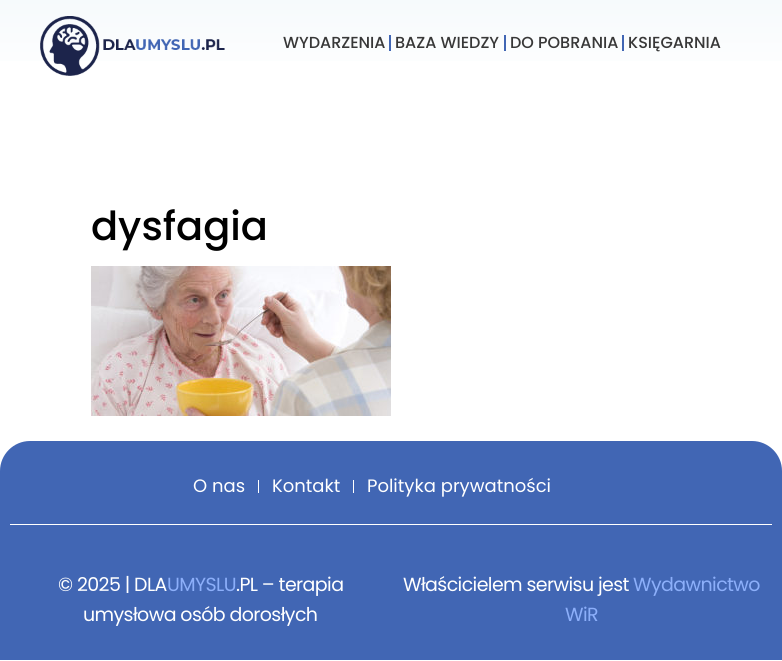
#include <cairo.h>
#include <math.h>
#include <stddef.h>


static void spaced_text(cairo_t *cr, double x, double y, const char *s, double letter, double word) {
    cairo_move_to(cr, x, y);
    while (*s) {
        char ch[5] = {0};
        int n = 0;
        do ch[n++] = *s++; while ((*s & 0xC0) == 0x80);
        cairo_show_text(cr, ch);
        cairo_rel_move_to(cr, letter + word * (*ch == ' '), 0);
    }
}

static void picture(cairo_t *cr, const char *path, double x, double y, double w, double h) {
    cairo_surface_t *image = cairo_image_surface_create_from_png(path);
    cairo_save(cr);
    cairo_set_source_surface(cr, image, x, y);
    cairo_rectangle(cr, x, y, w, h);
    cairo_fill(cr);
    cairo_restore(cr);
    cairo_surface_destroy(image);
}

int main(void) {
    cairo_surface_t *surface = cairo_image_surface_create(CAIRO_FORMAT_RGB24, 782, 661);
    cairo_t *cr = cairo_create(surface);
    cairo_font_options_t *options = cairo_font_options_create();
    cairo_font_options_set_hint_metrics(options, CAIRO_HINT_METRICS_OFF);
    cairo_font_options_set_hint_style(options, CAIRO_HINT_STYLE_NONE);
    cairo_set_font_options(cr, options);
    cairo_set_miter_limit(cr, 4);
    cairo_pattern_t *gradient;
    cairo_set_source_rgb(cr, 1, 1, 1);
    cairo_paint(cr);
    gradient = cairo_pattern_create_linear(391, 0, 391, 85);
    cairo_pattern_add_color_stop_rgba(gradient, 0, 0.965, 0.98, 0.988, 1);
    cairo_pattern_add_color_stop_rgba(gradient, 1, 1, 1, 1, 1);
    cairo_set_source(cr, gradient);
    cairo_pattern_destroy(gradient);
    cairo_rectangle(cr, 0, 0, 782, 61);
    cairo_fill(cr);
    picture(cr, "img1.png", 40, 16, 185, 60);
    cairo_select_font_face(cr, "Poppins Medium", CAIRO_FONT_SLANT_NORMAL, CAIRO_FONT_WEIGHT_NORMAL);
    cairo_set_font_size(cr, 16);
    cairo_set_source_rgb(cr, 0.22, 0.22, 0.22);
    cairo_move_to(cr, 283, 48);
    cairo_show_text(cr, "WYDARZENIA");
    cairo_set_source_rgb(cr, 0.255, 0.4, 0.706);
    cairo_rectangle(cr, 389, 35, 2, 16);
    cairo_fill(cr);
    cairo_set_source_rgb(cr, 0.22, 0.22, 0.22);
    cairo_move_to(cr, 395, 48);
    cairo_show_text(cr, "BAZA WIEDZY");
    cairo_set_source_rgb(cr, 0.255, 0.4, 0.706);
    cairo_rectangle(cr, 504, 35, 2, 16);
    cairo_fill(cr);
    cairo_set_source_rgb(cr, 0.22, 0.22, 0.22);
    cairo_move_to(cr, 510, 48);
    cairo_show_text(cr, "DO POBRANIA");
    cairo_set_source_rgb(cr, 0.255, 0.4, 0.706);
    cairo_rectangle(cr, 622, 35, 2, 16);
    cairo_fill(cr);
    cairo_set_source_rgb(cr, 0.22, 0.22, 0.22);
    cairo_move_to(cr, 628, 48);
    cairo_show_text(cr, "KSIĘGARNIA");
    cairo_set_font_size(cr, 40);
    cairo_set_source_rgb(cr, 0, 0, 0);
    cairo_move_to(cr, 91, 240);
    cairo_show_text(cr, "dysfagia");
    picture(cr, "img2.png", 91, 266, 300, 150);
    cairo_set_source_rgb(cr, 0.255, 0.4, 0.706);
    cairo_new_path(cr);
    cairo_move_to(cr, 30, 441);
    cairo_line_to(cr, 752, 441);
    cairo_curve_to(cr, 768.5, 441, 782, 454.5, 782, 471);
    cairo_line_to(cr, 782, 509);
    cairo_line_to(cr, 0, 509);
    cairo_line_to(cr, 0, 471);
    cairo_curve_to(cr, 0, 454.5, 13.5, 441, 30, 441);
    cairo_close_path(cr);
    cairo_fill(cr);
    cairo_select_font_face(cr, "Poppins", CAIRO_FONT_SLANT_NORMAL, CAIRO_FONT_WEIGHT_NORMAL);
    cairo_set_font_size(cr, 18);
    cairo_set_source_rgb(cr, 1, 1, 1);
    cairo_move_to(cr, 193, 492);
    cairo_show_text(cr, "O nas");
    cairo_rectangle(cr, 258, 480, 1, 13);
    cairo_fill(cr);
    cairo_move_to(cr, 272, 492);
    cairo_show_text(cr, "Kontakt");
    cairo_rectangle(cr, 353, 480, 1, 13);
    cairo_fill(cr);
    cairo_move_to(cr, 367, 492);
    cairo_show_text(cr, "Polityka prywatności");
    cairo_set_source_rgb(cr, 0.255, 0.4, 0.706);
    cairo_rectangle(cr, 0, 509, 782, 151);
    cairo_fill(cr);
    cairo_set_source_rgb(cr, 1, 1, 1);
    cairo_rectangle(cr, 10, 524, 762, 1);
    cairo_fill(cr);
    cairo_set_font_size(cr, 19);
    spaced_text(cr, 58, 591, "© 2025 | DLA", -0.6, 0);
    cairo_set_source_rgb(cr, 0.549, 0.686, 0.98);
    spaced_text(cr, 167, 591, "UMYSLU", -0.6, 0);
    cairo_set_source_rgb(cr, 1, 1, 1);
    spaced_text(cr, 236, 591, ".PL – terapia", -0.6, 0);
    spaced_text(cr, 83, 621, "umysłowa osób dorosłych", -0.6, 0);
    spaced_text(cr, 403, 591, "Właścicielem serwisu jest", -0.6, 0);
    cairo_set_source_rgb(cr, 0.549, 0.686, 0.98);
    spaced_text(cr, 633, 591, "Wydawnictwo", -0.6, 0);
    spaced_text(cr, 565, 621, "WiR", -0.6, 0);
    cairo_surface_write_to_png(surface, "page.png");
    cairo_font_options_destroy(options);
    cairo_destroy(cr);
    cairo_surface_destroy(surface);
    return 0;
}
